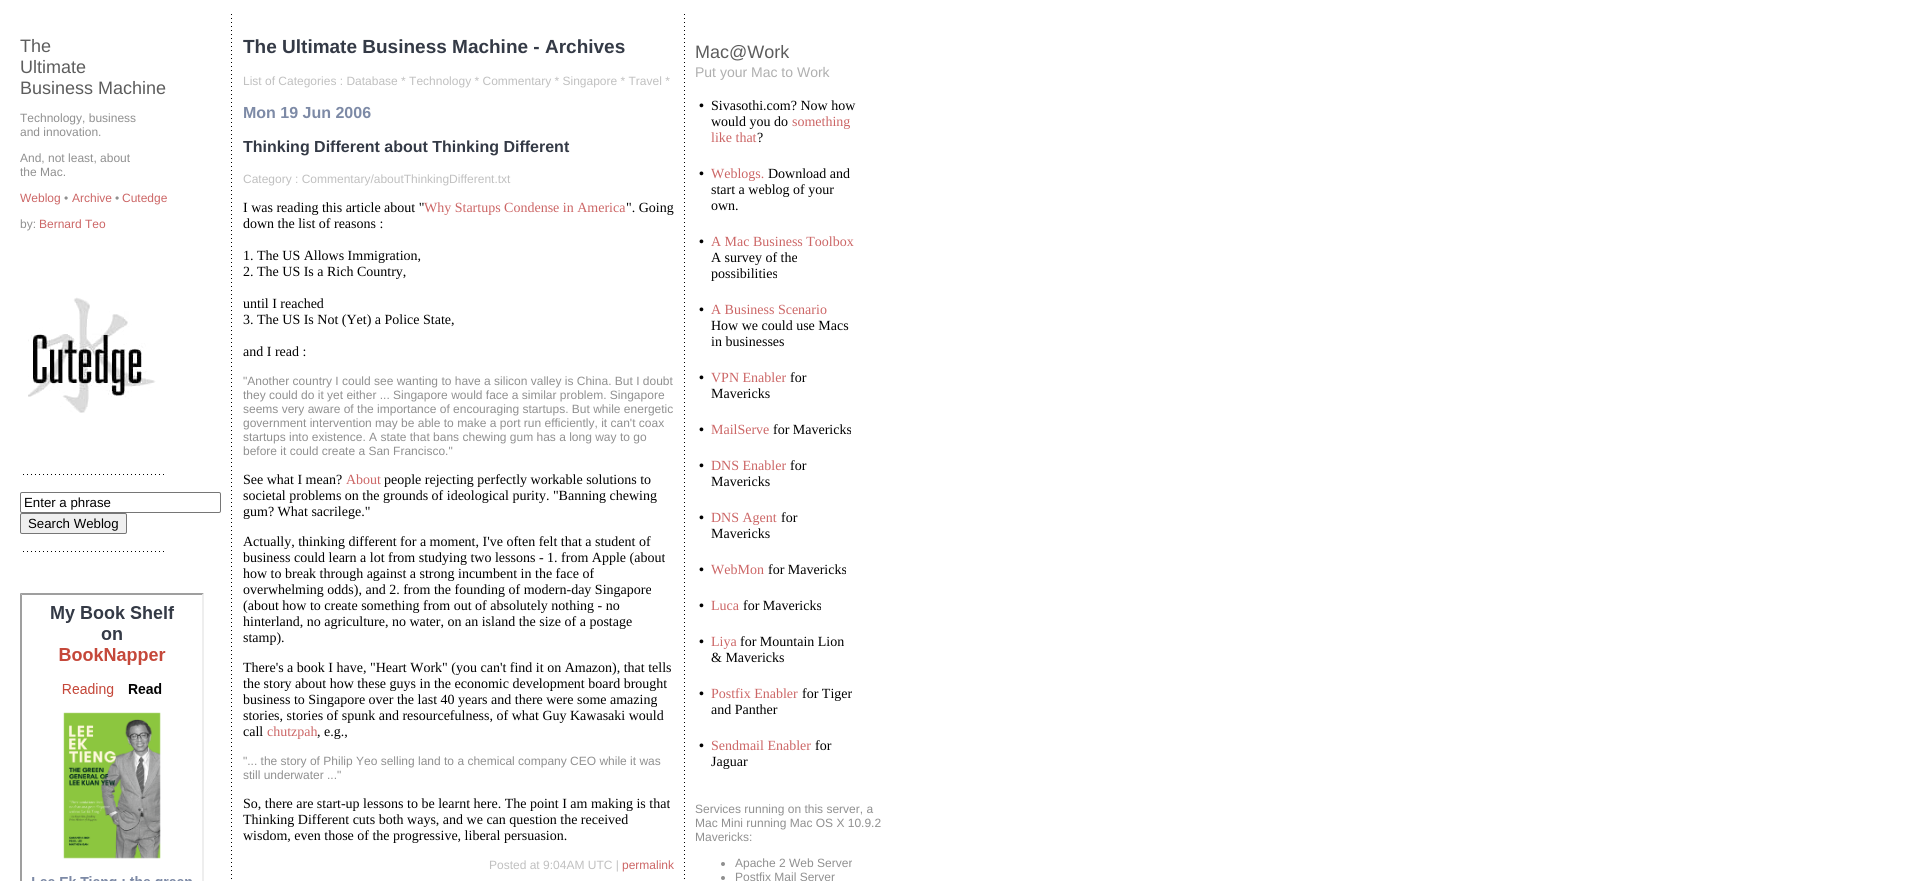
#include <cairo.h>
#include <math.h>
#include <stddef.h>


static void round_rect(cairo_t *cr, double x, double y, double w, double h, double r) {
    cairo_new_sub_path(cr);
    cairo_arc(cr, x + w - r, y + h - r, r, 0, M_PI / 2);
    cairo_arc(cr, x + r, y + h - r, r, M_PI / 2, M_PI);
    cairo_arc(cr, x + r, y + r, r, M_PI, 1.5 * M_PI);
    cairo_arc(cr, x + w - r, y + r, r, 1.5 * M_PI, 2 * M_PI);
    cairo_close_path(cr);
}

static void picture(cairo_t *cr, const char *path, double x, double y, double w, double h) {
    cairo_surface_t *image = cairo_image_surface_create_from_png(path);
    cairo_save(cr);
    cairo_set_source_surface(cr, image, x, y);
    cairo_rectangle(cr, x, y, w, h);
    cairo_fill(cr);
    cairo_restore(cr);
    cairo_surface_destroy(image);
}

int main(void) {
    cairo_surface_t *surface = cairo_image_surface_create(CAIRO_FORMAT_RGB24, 1917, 881);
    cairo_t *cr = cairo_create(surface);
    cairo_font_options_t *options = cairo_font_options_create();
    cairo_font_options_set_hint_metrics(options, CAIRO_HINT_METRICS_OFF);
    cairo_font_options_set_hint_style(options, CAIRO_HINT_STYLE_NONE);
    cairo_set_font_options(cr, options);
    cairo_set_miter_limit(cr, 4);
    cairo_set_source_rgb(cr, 1, 1, 1);
    cairo_paint(cr);
    picture(cr, "img1.png", 231, 14, 1, 865);
    picture(cr, "img1.png", 684, 14, 1, 865);
    cairo_select_font_face(cr, "Liberation Sans", CAIRO_FONT_SLANT_NORMAL, CAIRO_FONT_WEIGHT_NORMAL);
    cairo_set_font_size(cr, 18);
    cairo_set_source_rgb(cr, 0.365, 0.365, 0.365);
    cairo_move_to(cr, 20, 52);
    cairo_show_text(cr, "The");
    cairo_move_to(cr, 20, 73);
    cairo_show_text(cr, "Ultimate");
    cairo_move_to(cr, 20, 94);
    cairo_show_text(cr, "Business Machine");
    cairo_set_font_size(cr, 12);
    cairo_set_source_rgb(cr, 0.565, 0.565, 0.565);
    cairo_move_to(cr, 20, 122);
    cairo_show_text(cr, "Technology, business");
    cairo_move_to(cr, 20, 136);
    cairo_show_text(cr, "and innovation.");
    cairo_move_to(cr, 20, 162);
    cairo_show_text(cr, "And, not least, about");
    cairo_move_to(cr, 20, 176);
    cairo_show_text(cr, "the Mac.");
    cairo_set_source_rgb(cr, 0.8, 0.4, 0.4);
    cairo_move_to(cr, 20, 202);
    cairo_show_text(cr, "Weblog");
    cairo_set_source_rgb(cr, 0.565, 0.565, 0.565);
    cairo_move_to(cr, 64, 202);
    cairo_show_text(cr, "•");
    cairo_set_source_rgb(cr, 0.8, 0.4, 0.4);
    cairo_move_to(cr, 72, 202);
    cairo_show_text(cr, "Archive");
    cairo_set_source_rgb(cr, 0.565, 0.565, 0.565);
    cairo_move_to(cr, 115, 202);
    cairo_show_text(cr, "•");
    cairo_set_source_rgb(cr, 0.8, 0.4, 0.4);
    cairo_move_to(cr, 122, 202);
    cairo_show_text(cr, "Cutedge");
    cairo_set_source_rgb(cr, 0.565, 0.565, 0.565);
    cairo_move_to(cr, 20, 228);
    cairo_show_text(cr, "by:");
    cairo_set_source_rgb(cr, 0.8, 0.4, 0.4);
    cairo_move_to(cr, 39, 228);
    cairo_show_text(cr, "Bernard Teo");
    picture(cr, "img2.png", 28, 297, 128, 116);
    picture(cr, "img3.png", 23, 474, 141, 1);
    round_rect(cr, 20.5, 492.5, 200, 20, 1.5);
    cairo_set_source_rgb(cr, 0.463, 0.463, 0.463);
    cairo_set_line_width(cr, 1);
    cairo_stroke(cr);
    cairo_set_font_size(cr, 13.25);
    cairo_set_source_rgb(cr, 0, 0, 0);
    cairo_move_to(cr, 24, 507);
    cairo_show_text(cr, "Enter a phrase");
    cairo_set_source_rgb(cr, 0.937, 0.937, 0.937);
    round_rect(cr, 20.5, 513.5, 106, 20, 1.5);
    cairo_fill_preserve(cr);
    cairo_set_source_rgb(cr, 0.463, 0.463, 0.463);
    cairo_stroke(cr);
    cairo_set_source_rgb(cr, 0, 0, 0);
    cairo_move_to(cr, 28, 528);
    cairo_show_text(cr, "Search Weblog");
    picture(cr, "img3.png", 23, 551, 141, 1);
    cairo_set_source_rgb(cr, 0.624, 0.624, 0.624);
    cairo_new_path(cr);
    cairo_move_to(cr, 20, 593);
    cairo_line_to(cr, 204, 593);
    cairo_line_to(cr, 202, 595);
    cairo_line_to(cr, 22, 595);
    cairo_close_path(cr);
    cairo_fill(cr);
    cairo_new_path(cr);
    cairo_move_to(cr, 20, 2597);
    cairo_line_to(cr, 20, 593);
    cairo_line_to(cr, 22, 595);
    cairo_line_to(cr, 22, 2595);
    cairo_close_path(cr);
    cairo_fill(cr);
    picture(cr, "img4.png", 32, 606, 160, 275);
    cairo_set_source_rgb(cr, 0.933, 0.933, 0.933);
    cairo_new_path(cr);
    cairo_move_to(cr, 204, 593);
    cairo_line_to(cr, 204, 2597);
    cairo_line_to(cr, 202, 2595);
    cairo_line_to(cr, 202, 595);
    cairo_close_path(cr);
    cairo_fill(cr);
    cairo_select_font_face(cr, "Liberation Sans", CAIRO_FONT_SLANT_NORMAL, CAIRO_FONT_WEIGHT_BOLD);
    cairo_set_font_size(cr, 19);
    cairo_set_source_rgb(cr, 0.204, 0.227, 0.275);
    cairo_move_to(cr, 243, 53);
    cairo_show_text(cr, "The Ultimate Business Machine - Archives");
    cairo_select_font_face(cr, "Liberation Sans", CAIRO_FONT_SLANT_NORMAL, CAIRO_FONT_WEIGHT_NORMAL);
    cairo_set_font_size(cr, 12);
    cairo_set_source_rgb(cr, 0.753, 0.753, 0.753);
    cairo_move_to(cr, 243, 85);
    cairo_show_text(cr, "List of Categories : Database * Technology * Commentary * Singapore * Travel *");
    cairo_select_font_face(cr, "Liberation Sans", CAIRO_FONT_SLANT_NORMAL, CAIRO_FONT_WEIGHT_BOLD);
    cairo_set_font_size(cr, 16);
    cairo_set_source_rgb(cr, 0.49, 0.541, 0.651);
    cairo_move_to(cr, 243, 118);
    cairo_show_text(cr, "Mon 19 Jun 2006");
    cairo_set_source_rgb(cr, 0.204, 0.227, 0.275);
    cairo_move_to(cr, 243, 152);
    cairo_show_text(cr, "Thinking Different about Thinking Different");
    cairo_select_font_face(cr, "Liberation Sans", CAIRO_FONT_SLANT_NORMAL, CAIRO_FONT_WEIGHT_NORMAL);
    cairo_set_font_size(cr, 12);
    cairo_set_source_rgb(cr, 0.753, 0.753, 0.753);
    cairo_move_to(cr, 243, 183);
    cairo_show_text(cr, "Category : Commentary/aboutThinkingDifferent.txt");
    cairo_select_font_face(cr, "Liberation Serif", CAIRO_FONT_SLANT_NORMAL, CAIRO_FONT_WEIGHT_NORMAL);
    cairo_set_font_size(cr, 14);
    cairo_set_source_rgb(cr, 0, 0, 0);
    cairo_move_to(cr, 243, 212);
    cairo_show_text(cr, "I was reading this article about \"");
    cairo_set_source_rgb(cr, 0.8, 0.4, 0.4);
    cairo_move_to(cr, 424, 212);
    cairo_show_text(cr, "Why Startups Condense in America");
    cairo_set_source_rgb(cr, 0, 0, 0);
    cairo_move_to(cr, 626, 212);
    cairo_show_text(cr, "\". Going");
    cairo_move_to(cr, 243, 228);
    cairo_show_text(cr, "down the list of reasons :");
    cairo_move_to(cr, 243, 260);
    cairo_show_text(cr, "1. The US Allows Immigration,");
    cairo_move_to(cr, 243, 276);
    cairo_show_text(cr, "2. The US Is a Rich Country,");
    cairo_move_to(cr, 243, 308);
    cairo_show_text(cr, "until I reached");
    cairo_move_to(cr, 243, 324);
    cairo_show_text(cr, "3. The US Is Not (Yet) a Police State,");
    cairo_move_to(cr, 243, 356);
    cairo_show_text(cr, "and I read :");
    cairo_select_font_face(cr, "Liberation Sans", CAIRO_FONT_SLANT_NORMAL, CAIRO_FONT_WEIGHT_NORMAL);
    cairo_set_font_size(cr, 12);
    cairo_set_source_rgb(cr, 0.565, 0.565, 0.565);
    cairo_move_to(cr, 243, 385);
    cairo_show_text(cr, "\"Another country I could see wanting to have a silicon valley is China. But I doubt");
    cairo_move_to(cr, 243, 399);
    cairo_show_text(cr, "they could do it yet either ... Singapore would face a similar problem. Singapore");
    cairo_move_to(cr, 243, 413);
    cairo_show_text(cr, "seems very aware of the importance of encouraging startups. But while energetic");
    cairo_move_to(cr, 243, 427);
    cairo_show_text(cr, "government intervention may be able to make a port run efficiently, it can't coax");
    cairo_move_to(cr, 243, 441);
    cairo_show_text(cr, "startups into existence. A state that bans chewing gum has a long way to go");
    cairo_move_to(cr, 243, 455);
    cairo_show_text(cr, "before it could create a San Francisco.\"");
    cairo_select_font_face(cr, "Liberation Serif", CAIRO_FONT_SLANT_NORMAL, CAIRO_FONT_WEIGHT_NORMAL);
    cairo_set_font_size(cr, 14);
    cairo_set_source_rgb(cr, 0, 0, 0);
    cairo_move_to(cr, 243, 484);
    cairo_show_text(cr, "See what I mean?");
    cairo_set_source_rgb(cr, 0.8, 0.4, 0.4);
    cairo_move_to(cr, 346, 484);
    cairo_show_text(cr, "About");
    cairo_set_source_rgb(cr, 0, 0, 0);
    cairo_move_to(cr, 384, 484);
    cairo_show_text(cr, "people rejecting perfectly workable solutions to");
    cairo_move_to(cr, 243, 500);
    cairo_show_text(cr, "societal problems on the grounds of ideological purity. \"Banning chewing");
    cairo_move_to(cr, 243, 516);
    cairo_show_text(cr, "gum? What sacrilege.\"");
    cairo_move_to(cr, 243, 546);
    cairo_show_text(cr, "Actually, thinking different for a moment, I've often felt that a student of");
    cairo_move_to(cr, 243, 562);
    cairo_show_text(cr, "business could learn a lot from studying two lessons - 1. from Apple (about");
    cairo_move_to(cr, 243, 578);
    cairo_show_text(cr, "how to break through against a strong incumbent in the face of");
    cairo_move_to(cr, 243, 594);
    cairo_show_text(cr, "overwhelming odds), and 2. from the founding of modern-day Singapore");
    cairo_move_to(cr, 243, 610);
    cairo_show_text(cr, "(about how to create something from out of absolutely nothing - no");
    cairo_move_to(cr, 243, 626);
    cairo_show_text(cr, "hinterland, no agriculture, no water, on an island the size of a postage");
    cairo_move_to(cr, 243, 642);
    cairo_show_text(cr, "stamp).");
    cairo_move_to(cr, 243, 672);
    cairo_show_text(cr, "There's a book I have, \"Heart Work\" (you can't find it on Amazon), that tells");
    cairo_move_to(cr, 243, 688);
    cairo_show_text(cr, "the story about how these guys in the economic development board brought");
    cairo_move_to(cr, 243, 704);
    cairo_show_text(cr, "business to Singapore over the last 40 years and there were some amazing");
    cairo_move_to(cr, 243, 720);
    cairo_show_text(cr, "stories, stories of spunk and resourcefulness, of what Guy Kawasaki would");
    cairo_move_to(cr, 243, 736);
    cairo_show_text(cr, "call");
    cairo_set_source_rgb(cr, 0.8, 0.4, 0.4);
    cairo_move_to(cr, 267, 736);
    cairo_show_text(cr, "chutzpah");
    cairo_set_source_rgb(cr, 0, 0, 0);
    cairo_move_to(cr, 317, 736);
    cairo_show_text(cr, ", e.g.,");
    cairo_select_font_face(cr, "Liberation Sans", CAIRO_FONT_SLANT_NORMAL, CAIRO_FONT_WEIGHT_NORMAL);
    cairo_set_font_size(cr, 12);
    cairo_set_source_rgb(cr, 0.565, 0.565, 0.565);
    cairo_move_to(cr, 243, 765);
    cairo_show_text(cr, "\"... the story of Philip Yeo selling land to a chemical company CEO while it was");
    cairo_move_to(cr, 243, 779);
    cairo_show_text(cr, "still underwater ...\"");
    cairo_select_font_face(cr, "Liberation Serif", CAIRO_FONT_SLANT_NORMAL, CAIRO_FONT_WEIGHT_NORMAL);
    cairo_set_font_size(cr, 14);
    cairo_set_source_rgb(cr, 0, 0, 0);
    cairo_move_to(cr, 243, 808);
    cairo_show_text(cr, "So, there are start-up lessons to be learnt here. The point I am making is that");
    cairo_move_to(cr, 243, 824);
    cairo_show_text(cr, "Thinking Different cuts both ways, and we can question the received");
    cairo_move_to(cr, 243, 840);
    cairo_show_text(cr, "wisdom, even those of the progressive, liberal persuasion.");
    cairo_select_font_face(cr, "Liberation Sans", CAIRO_FONT_SLANT_NORMAL, CAIRO_FONT_WEIGHT_NORMAL);
    cairo_set_font_size(cr, 12);
    cairo_set_source_rgb(cr, 0.753, 0.753, 0.753);
    cairo_move_to(cr, 489, 869);
    cairo_show_text(cr, "Posted at 9:04AM UTC |");
    cairo_set_source_rgb(cr, 0.8, 0.4, 0.4);
    cairo_move_to(cr, 622, 869);
    cairo_show_text(cr, "permalink");
    cairo_set_font_size(cr, 18);
    cairo_set_source_rgb(cr, 0.365, 0.365, 0.365);
    cairo_move_to(cr, 695, 58);
    cairo_show_text(cr, "Mac@Work");
    cairo_set_font_size(cr, 14);
    cairo_set_source_rgb(cr, 0.686, 0.686, 0.686);
    cairo_move_to(cr, 695, 77);
    cairo_show_text(cr, "Put your Mac to Work");
    cairo_select_font_face(cr, "Liberation Serif", CAIRO_FONT_SLANT_NORMAL, CAIRO_FONT_WEIGHT_BOLD);
    cairo_set_source_rgb(cr, 0, 0, 0);
    cairo_move_to(cr, 699, 110);
    cairo_show_text(cr, "•");
    cairo_select_font_face(cr, "Liberation Serif", CAIRO_FONT_SLANT_NORMAL, CAIRO_FONT_WEIGHT_NORMAL);
    cairo_move_to(cr, 711, 110);
    cairo_show_text(cr, "Sivasothi.com? Now how");
    cairo_move_to(cr, 711, 126);
    cairo_show_text(cr, "would you do");
    cairo_set_source_rgb(cr, 0.8, 0.4, 0.4);
    cairo_move_to(cr, 792, 126);
    cairo_show_text(cr, "something");
    cairo_move_to(cr, 711, 142);
    cairo_show_text(cr, "like that");
    cairo_set_source_rgb(cr, 0, 0, 0);
    cairo_move_to(cr, 757, 142);
    cairo_show_text(cr, "?");
    cairo_select_font_face(cr, "Liberation Serif", CAIRO_FONT_SLANT_NORMAL, CAIRO_FONT_WEIGHT_BOLD);
    cairo_move_to(cr, 699, 178);
    cairo_show_text(cr, "•");
    cairo_select_font_face(cr, "Liberation Serif", CAIRO_FONT_SLANT_NORMAL, CAIRO_FONT_WEIGHT_NORMAL);
    cairo_set_source_rgb(cr, 0.8, 0.4, 0.4);
    cairo_move_to(cr, 711, 178);
    cairo_show_text(cr, "Weblogs.");
    cairo_set_source_rgb(cr, 0, 0, 0);
    cairo_move_to(cr, 768, 178);
    cairo_show_text(cr, "Download and");
    cairo_move_to(cr, 711, 194);
    cairo_show_text(cr, "start a weblog of your");
    cairo_move_to(cr, 711, 210);
    cairo_show_text(cr, "own.");
    cairo_select_font_face(cr, "Liberation Serif", CAIRO_FONT_SLANT_NORMAL, CAIRO_FONT_WEIGHT_BOLD);
    cairo_move_to(cr, 699, 246);
    cairo_show_text(cr, "•");
    cairo_select_font_face(cr, "Liberation Serif", CAIRO_FONT_SLANT_NORMAL, CAIRO_FONT_WEIGHT_NORMAL);
    cairo_set_source_rgb(cr, 0.8, 0.4, 0.4);
    cairo_move_to(cr, 711, 246);
    cairo_show_text(cr, "A Mac Business Toolbox");
    cairo_set_source_rgb(cr, 0, 0, 0);
    cairo_move_to(cr, 711, 262);
    cairo_show_text(cr, "A survey of the");
    cairo_move_to(cr, 711, 278);
    cairo_show_text(cr, "possibilities");
    cairo_select_font_face(cr, "Liberation Serif", CAIRO_FONT_SLANT_NORMAL, CAIRO_FONT_WEIGHT_BOLD);
    cairo_move_to(cr, 699, 314);
    cairo_show_text(cr, "•");
    cairo_select_font_face(cr, "Liberation Serif", CAIRO_FONT_SLANT_NORMAL, CAIRO_FONT_WEIGHT_NORMAL);
    cairo_set_source_rgb(cr, 0.8, 0.4, 0.4);
    cairo_move_to(cr, 711, 314);
    cairo_show_text(cr, "A Business Scenario");
    cairo_set_source_rgb(cr, 0, 0, 0);
    cairo_move_to(cr, 711, 330);
    cairo_show_text(cr, "How we could use Macs");
    cairo_move_to(cr, 711, 346);
    cairo_show_text(cr, "in businesses");
    cairo_select_font_face(cr, "Liberation Serif", CAIRO_FONT_SLANT_NORMAL, CAIRO_FONT_WEIGHT_BOLD);
    cairo_move_to(cr, 699, 382);
    cairo_show_text(cr, "•");
    cairo_select_font_face(cr, "Liberation Serif", CAIRO_FONT_SLANT_NORMAL, CAIRO_FONT_WEIGHT_NORMAL);
    cairo_set_source_rgb(cr, 0.8, 0.4, 0.4);
    cairo_move_to(cr, 711, 382);
    cairo_show_text(cr, "VPN Enabler");
    cairo_set_source_rgb(cr, 0, 0, 0);
    cairo_move_to(cr, 790, 382);
    cairo_show_text(cr, "for");
    cairo_move_to(cr, 711, 398);
    cairo_show_text(cr, "Mavericks");
    cairo_select_font_face(cr, "Liberation Serif", CAIRO_FONT_SLANT_NORMAL, CAIRO_FONT_WEIGHT_BOLD);
    cairo_move_to(cr, 699, 434);
    cairo_show_text(cr, "•");
    cairo_select_font_face(cr, "Liberation Serif", CAIRO_FONT_SLANT_NORMAL, CAIRO_FONT_WEIGHT_NORMAL);
    cairo_set_source_rgb(cr, 0.8, 0.4, 0.4);
    cairo_move_to(cr, 711, 434);
    cairo_show_text(cr, "MailServe");
    cairo_set_source_rgb(cr, 0, 0, 0);
    cairo_move_to(cr, 773, 434);
    cairo_show_text(cr, "for Mavericks");
    cairo_select_font_face(cr, "Liberation Serif", CAIRO_FONT_SLANT_NORMAL, CAIRO_FONT_WEIGHT_BOLD);
    cairo_move_to(cr, 699, 470);
    cairo_show_text(cr, "•");
    cairo_select_font_face(cr, "Liberation Serif", CAIRO_FONT_SLANT_NORMAL, CAIRO_FONT_WEIGHT_NORMAL);
    cairo_set_source_rgb(cr, 0.8, 0.4, 0.4);
    cairo_move_to(cr, 711, 470);
    cairo_show_text(cr, "DNS Enabler");
    cairo_set_source_rgb(cr, 0, 0, 0);
    cairo_move_to(cr, 790, 470);
    cairo_show_text(cr, "for");
    cairo_move_to(cr, 711, 486);
    cairo_show_text(cr, "Mavericks");
    cairo_select_font_face(cr, "Liberation Serif", CAIRO_FONT_SLANT_NORMAL, CAIRO_FONT_WEIGHT_BOLD);
    cairo_move_to(cr, 699, 522);
    cairo_show_text(cr, "•");
    cairo_select_font_face(cr, "Liberation Serif", CAIRO_FONT_SLANT_NORMAL, CAIRO_FONT_WEIGHT_NORMAL);
    cairo_set_source_rgb(cr, 0.8, 0.4, 0.4);
    cairo_move_to(cr, 711, 522);
    cairo_show_text(cr, "DNS Agent");
    cairo_set_source_rgb(cr, 0, 0, 0);
    cairo_move_to(cr, 781, 522);
    cairo_show_text(cr, "for");
    cairo_move_to(cr, 711, 538);
    cairo_show_text(cr, "Mavericks");
    cairo_select_font_face(cr, "Liberation Serif", CAIRO_FONT_SLANT_NORMAL, CAIRO_FONT_WEIGHT_BOLD);
    cairo_move_to(cr, 699, 574);
    cairo_show_text(cr, "•");
    cairo_select_font_face(cr, "Liberation Serif", CAIRO_FONT_SLANT_NORMAL, CAIRO_FONT_WEIGHT_NORMAL);
    cairo_set_source_rgb(cr, 0.8, 0.4, 0.4);
    cairo_move_to(cr, 711, 574);
    cairo_show_text(cr, "WebMon");
    cairo_set_source_rgb(cr, 0, 0, 0);
    cairo_move_to(cr, 768, 574);
    cairo_show_text(cr, "for Mavericks");
    cairo_select_font_face(cr, "Liberation Serif", CAIRO_FONT_SLANT_NORMAL, CAIRO_FONT_WEIGHT_BOLD);
    cairo_move_to(cr, 699, 610);
    cairo_show_text(cr, "•");
    cairo_select_font_face(cr, "Liberation Serif", CAIRO_FONT_SLANT_NORMAL, CAIRO_FONT_WEIGHT_NORMAL);
    cairo_set_source_rgb(cr, 0.8, 0.4, 0.4);
    cairo_move_to(cr, 711, 610);
    cairo_show_text(cr, "Luca");
    cairo_set_source_rgb(cr, 0, 0, 0);
    cairo_move_to(cr, 743, 610);
    cairo_show_text(cr, "for Mavericks");
    cairo_select_font_face(cr, "Liberation Serif", CAIRO_FONT_SLANT_NORMAL, CAIRO_FONT_WEIGHT_BOLD);
    cairo_move_to(cr, 699, 646);
    cairo_show_text(cr, "•");
    cairo_select_font_face(cr, "Liberation Serif", CAIRO_FONT_SLANT_NORMAL, CAIRO_FONT_WEIGHT_NORMAL);
    cairo_set_source_rgb(cr, 0.8, 0.4, 0.4);
    cairo_move_to(cr, 711, 646);
    cairo_show_text(cr, "Liya");
    cairo_set_source_rgb(cr, 0, 0, 0);
    cairo_move_to(cr, 740, 646);
    cairo_show_text(cr, "for Mountain Lion");
    cairo_move_to(cr, 711, 662);
    cairo_show_text(cr, "& Mavericks");
    cairo_select_font_face(cr, "Liberation Serif", CAIRO_FONT_SLANT_NORMAL, CAIRO_FONT_WEIGHT_BOLD);
    cairo_move_to(cr, 699, 698);
    cairo_show_text(cr, "•");
    cairo_select_font_face(cr, "Liberation Serif", CAIRO_FONT_SLANT_NORMAL, CAIRO_FONT_WEIGHT_NORMAL);
    cairo_set_source_rgb(cr, 0.8, 0.4, 0.4);
    cairo_move_to(cr, 711, 698);
    cairo_show_text(cr, "Postfix Enabler");
    cairo_set_source_rgb(cr, 0, 0, 0);
    cairo_move_to(cr, 802, 698);
    cairo_show_text(cr, "for Tiger");
    cairo_move_to(cr, 711, 714);
    cairo_show_text(cr, "and Panther");
    cairo_select_font_face(cr, "Liberation Serif", CAIRO_FONT_SLANT_NORMAL, CAIRO_FONT_WEIGHT_BOLD);
    cairo_move_to(cr, 699, 750);
    cairo_show_text(cr, "•");
    cairo_select_font_face(cr, "Liberation Serif", CAIRO_FONT_SLANT_NORMAL, CAIRO_FONT_WEIGHT_NORMAL);
    cairo_set_source_rgb(cr, 0.8, 0.4, 0.4);
    cairo_move_to(cr, 711, 750);
    cairo_show_text(cr, "Sendmail Enabler");
    cairo_set_source_rgb(cr, 0, 0, 0);
    cairo_move_to(cr, 815, 750);
    cairo_show_text(cr, "for");
    cairo_move_to(cr, 711, 766);
    cairo_show_text(cr, "Jaguar");
    cairo_select_font_face(cr, "Liberation Sans", CAIRO_FONT_SLANT_NORMAL, CAIRO_FONT_WEIGHT_NORMAL);
    cairo_set_font_size(cr, 12);
    cairo_set_source_rgb(cr, 0.565, 0.565, 0.565);
    cairo_move_to(cr, 695, 813);
    cairo_show_text(cr, "Services running on this server, a");
    cairo_move_to(cr, 695, 827);
    cairo_show_text(cr, "Mac Mini running Mac OS X 10.9.2");
    cairo_move_to(cr, 695, 841);
    cairo_show_text(cr, "Mavericks:");
    cairo_new_path(cr);
    cairo_arc(cr, 723, 864, 2, 0, 2 * M_PI);
    cairo_fill(cr);
    cairo_move_to(cr, 735, 867);
    cairo_show_text(cr, "Apache 2 Web Server");
    cairo_new_path(cr);
    cairo_arc(cr, 723, 878, 2, 0, 2 * M_PI);
    cairo_fill(cr);
    cairo_move_to(cr, 735, 881);
    cairo_show_text(cr, "Postfix Mail Server");
    cairo_surface_write_to_png(surface, "page.png");
    cairo_font_options_destroy(options);
    cairo_destroy(cr);
    cairo_surface_destroy(surface);
    return 0;
}
